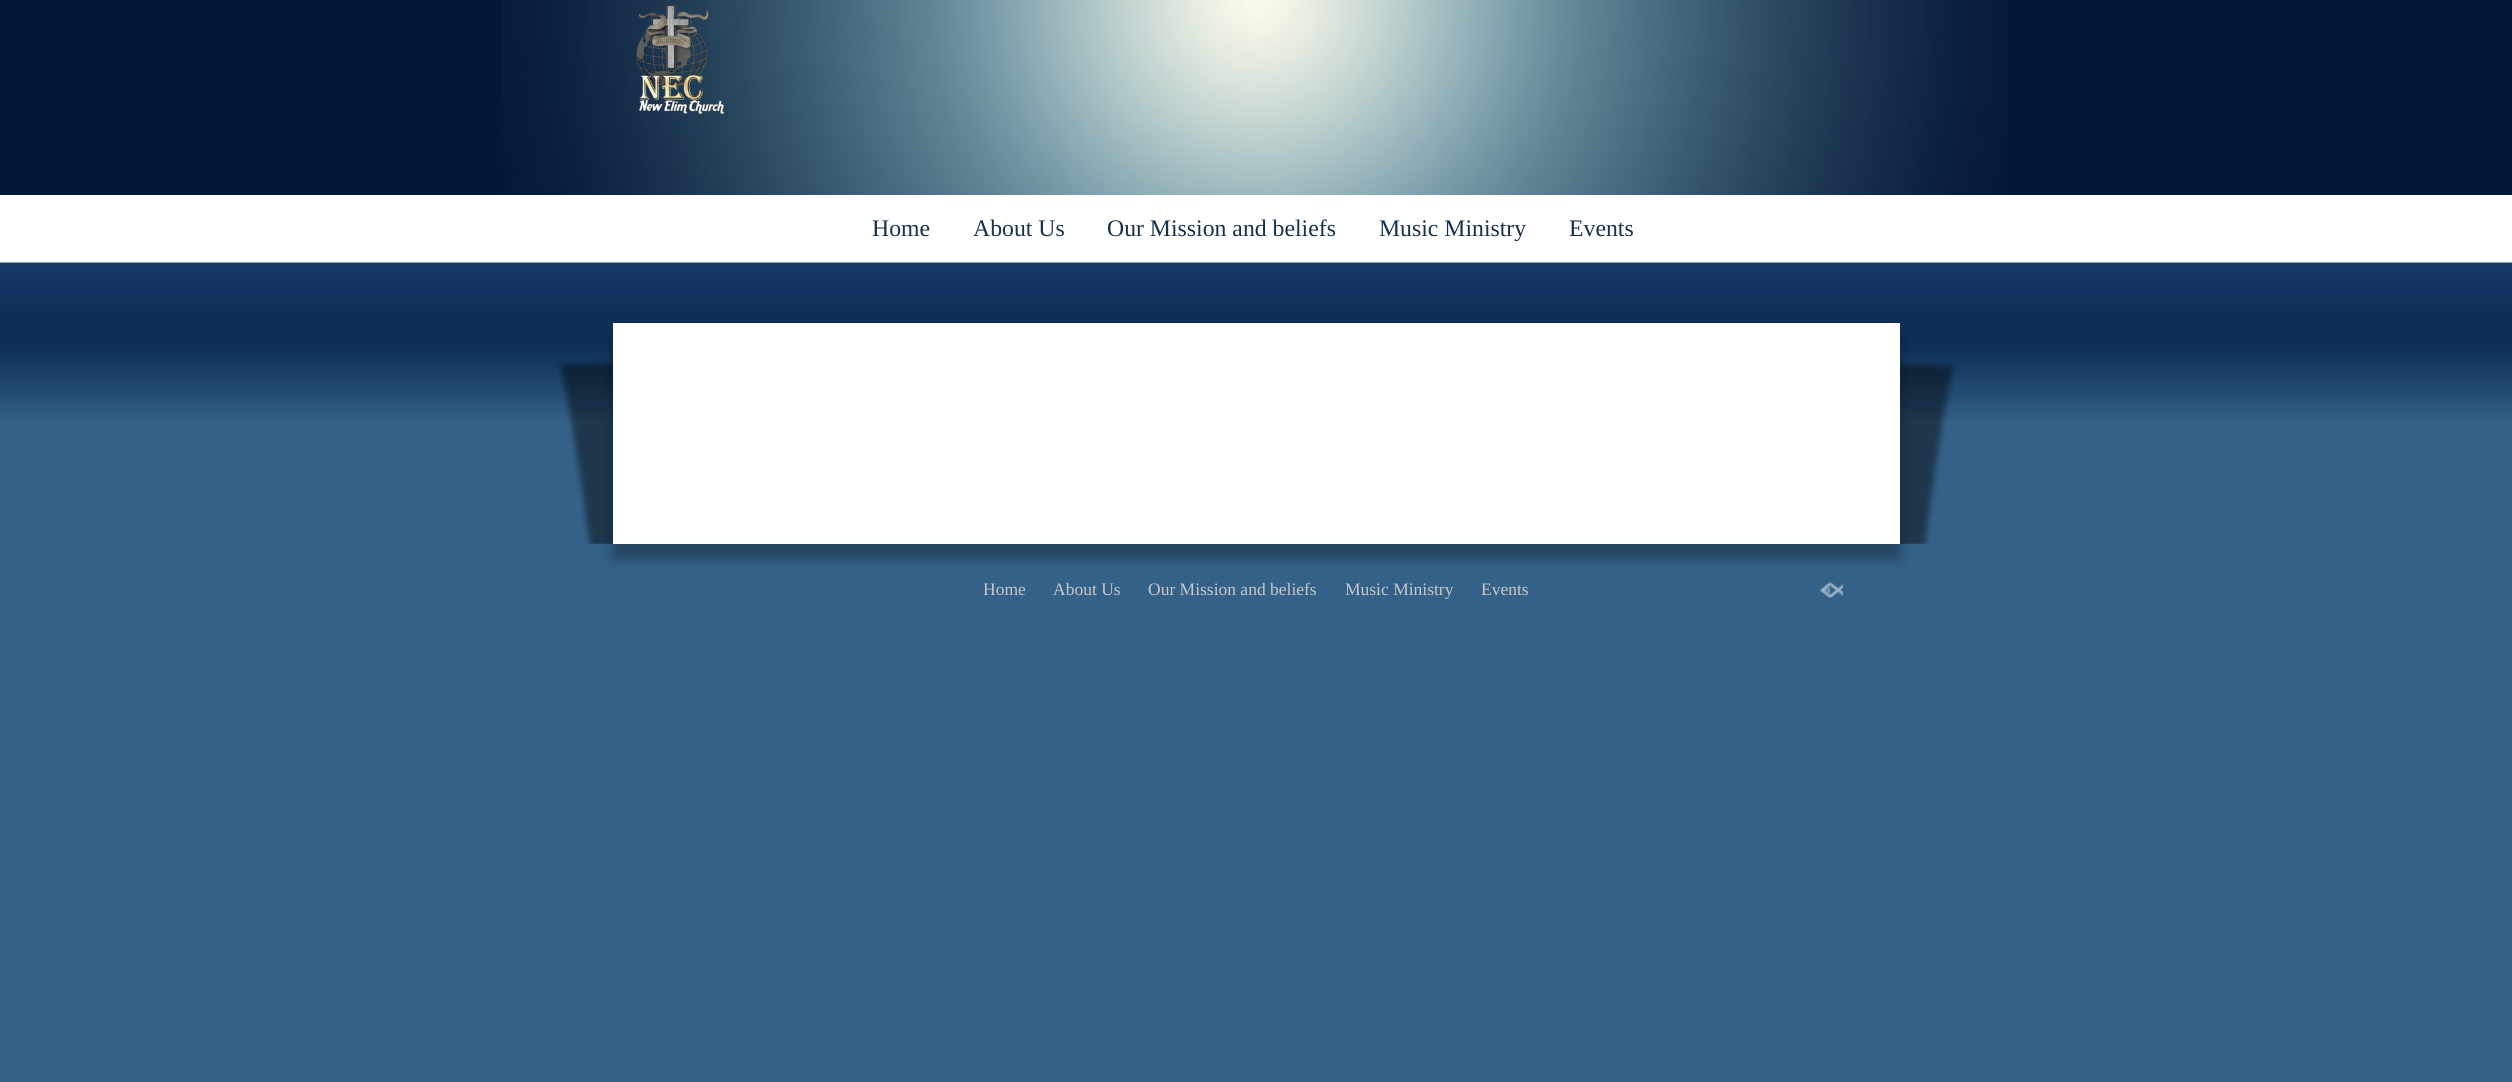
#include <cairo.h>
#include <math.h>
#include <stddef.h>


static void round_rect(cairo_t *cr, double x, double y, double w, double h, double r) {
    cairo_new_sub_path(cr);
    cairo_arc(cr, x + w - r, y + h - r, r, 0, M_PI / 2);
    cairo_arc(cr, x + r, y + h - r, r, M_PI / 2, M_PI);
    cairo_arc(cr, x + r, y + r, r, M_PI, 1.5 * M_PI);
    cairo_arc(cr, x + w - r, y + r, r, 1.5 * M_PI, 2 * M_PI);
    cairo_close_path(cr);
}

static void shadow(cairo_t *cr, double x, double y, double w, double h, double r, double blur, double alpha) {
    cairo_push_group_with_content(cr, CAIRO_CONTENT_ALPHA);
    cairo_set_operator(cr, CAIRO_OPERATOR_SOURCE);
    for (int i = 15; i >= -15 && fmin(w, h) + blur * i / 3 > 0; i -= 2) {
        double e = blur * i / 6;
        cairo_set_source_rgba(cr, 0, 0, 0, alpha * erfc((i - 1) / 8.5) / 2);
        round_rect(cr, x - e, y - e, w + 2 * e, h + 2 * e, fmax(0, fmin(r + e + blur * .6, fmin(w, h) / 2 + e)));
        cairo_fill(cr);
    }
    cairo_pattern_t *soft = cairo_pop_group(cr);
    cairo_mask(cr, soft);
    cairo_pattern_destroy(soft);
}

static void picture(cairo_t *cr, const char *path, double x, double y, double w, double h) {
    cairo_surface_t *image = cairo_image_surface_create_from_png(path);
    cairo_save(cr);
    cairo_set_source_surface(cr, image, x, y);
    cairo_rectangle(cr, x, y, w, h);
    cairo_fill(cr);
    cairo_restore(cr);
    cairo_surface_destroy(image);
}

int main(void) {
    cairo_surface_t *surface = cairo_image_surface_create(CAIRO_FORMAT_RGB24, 2512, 1082);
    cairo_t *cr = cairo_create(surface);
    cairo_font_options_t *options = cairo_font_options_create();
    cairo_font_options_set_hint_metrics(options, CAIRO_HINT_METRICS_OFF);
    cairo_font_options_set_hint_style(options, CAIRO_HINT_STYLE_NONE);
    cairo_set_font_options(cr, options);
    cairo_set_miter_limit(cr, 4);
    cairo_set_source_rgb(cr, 0.204, 0.38, 0.533);
    cairo_paint(cr);
    picture(cr, "img1.png", 0, 195, 2512, 225);
    cairo_set_source_rgb(cr, 0.012, 0.094, 0.204);
    cairo_rectangle(cr, 0, 0, 2512, 195);
    cairo_fill(cr);
    picture(cr, "img2.png", 502, 0, 1506, 195);
    picture(cr, "img3.png", 636, 3, 89, 111);
    cairo_select_font_face(cr, "Liberation Serif", CAIRO_FONT_SLANT_NORMAL, CAIRO_FONT_WEIGHT_NORMAL);
    cairo_set_font_size(cr, 23.75);
    cairo_set_source_rgb(cr, 0.09, 0.192, 0.294);
    cairo_move_to(cr, 872, 236);
    cairo_show_text(cr, "Home");
    cairo_move_to(cr, 973, 236);
    cairo_show_text(cr, "About Us");
    cairo_move_to(cr, 1107, 236);
    cairo_show_text(cr, "Our Mission and beliefs");
    cairo_move_to(cr, 1379, 236);
    cairo_show_text(cr, "Music Ministry");
    cairo_move_to(cr, 1569, 236);
    cairo_show_text(cr, "Events");
    picture(cr, "img4.png", 557, 358, 1400, 186);
    cairo_set_source_rgb(cr, 0, 0, 0);
    shadow(cr, 613, 338, 1287, 221, 0, 6, 0.3);
    cairo_set_source_rgb(cr, 1, 1, 1);
    cairo_rectangle(cr, 613, 323, 1287, 221);
    cairo_fill(cr);
    cairo_set_font_size(cr, 17.5);
    cairo_set_source_rgb(cr, 0.784, 0.78, 0.78);
    cairo_move_to(cr, 983, 595);
    cairo_show_text(cr, "Home");
    cairo_move_to(cr, 1053, 595);
    cairo_show_text(cr, "About Us");
    cairo_move_to(cr, 1148, 595);
    cairo_show_text(cr, "Our Mission and beliefs");
    cairo_move_to(cr, 1345, 595);
    cairo_show_text(cr, "Music Ministry");
    cairo_move_to(cr, 1481, 595);
    cairo_show_text(cr, "Events");
    picture(cr, "img5.png", 1820, 582, 23, 16);
    cairo_surface_write_to_png(surface, "page.png");
    cairo_font_options_destroy(options);
    cairo_destroy(cr);
    cairo_surface_destroy(surface);
    return 0;
}
